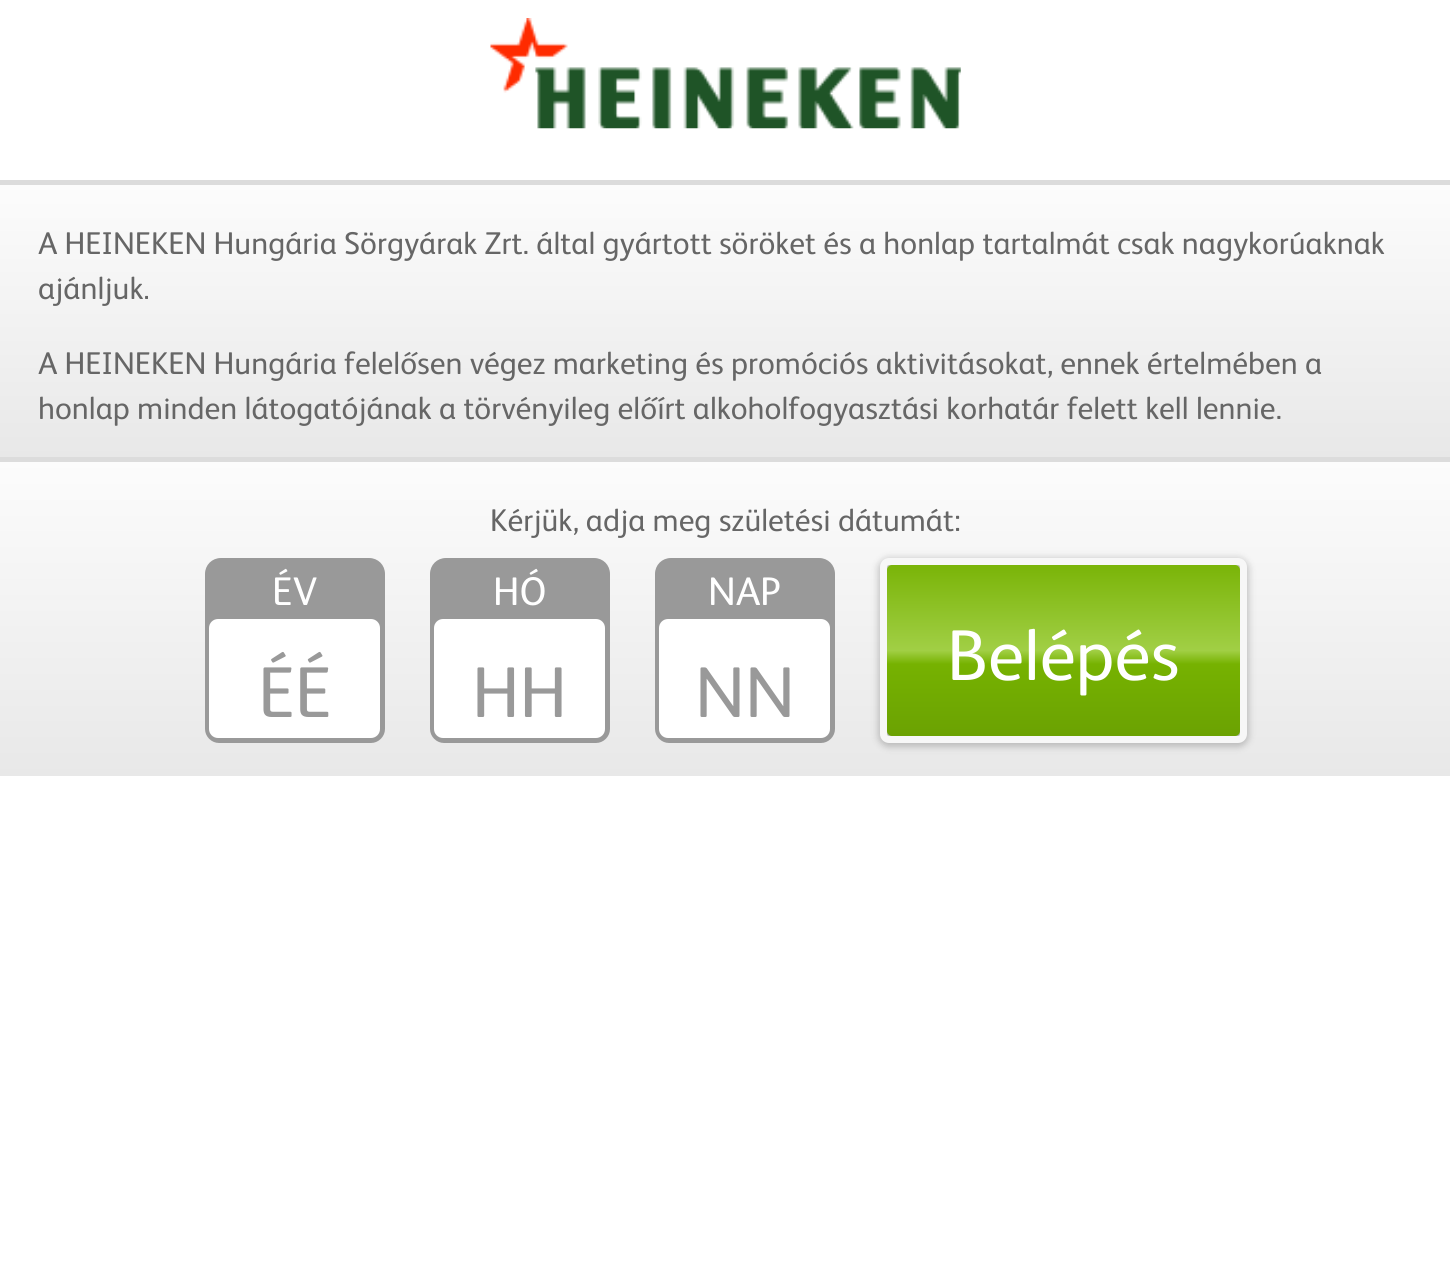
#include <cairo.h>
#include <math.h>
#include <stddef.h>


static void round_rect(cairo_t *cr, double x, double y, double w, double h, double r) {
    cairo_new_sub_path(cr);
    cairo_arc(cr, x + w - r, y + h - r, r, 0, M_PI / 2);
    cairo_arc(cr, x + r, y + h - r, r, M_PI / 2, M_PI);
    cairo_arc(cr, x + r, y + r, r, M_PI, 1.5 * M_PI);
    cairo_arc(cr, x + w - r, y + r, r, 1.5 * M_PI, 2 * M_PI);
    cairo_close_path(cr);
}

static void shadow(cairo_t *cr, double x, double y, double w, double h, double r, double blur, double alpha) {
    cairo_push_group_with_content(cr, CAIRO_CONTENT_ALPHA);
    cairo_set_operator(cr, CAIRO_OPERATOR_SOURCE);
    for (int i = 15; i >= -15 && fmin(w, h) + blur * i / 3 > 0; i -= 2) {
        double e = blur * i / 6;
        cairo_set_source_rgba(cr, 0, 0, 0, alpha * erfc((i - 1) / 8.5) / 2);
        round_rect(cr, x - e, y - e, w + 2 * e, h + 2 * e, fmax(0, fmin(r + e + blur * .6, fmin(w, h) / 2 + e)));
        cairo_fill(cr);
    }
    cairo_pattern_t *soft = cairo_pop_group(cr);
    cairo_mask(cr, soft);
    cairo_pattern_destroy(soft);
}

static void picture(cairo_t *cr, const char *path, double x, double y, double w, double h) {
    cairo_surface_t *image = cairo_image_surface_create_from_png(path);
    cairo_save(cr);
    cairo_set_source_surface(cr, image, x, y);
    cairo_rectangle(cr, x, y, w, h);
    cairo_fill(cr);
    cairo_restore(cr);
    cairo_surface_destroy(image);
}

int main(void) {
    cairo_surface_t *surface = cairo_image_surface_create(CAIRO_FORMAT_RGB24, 1450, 1270);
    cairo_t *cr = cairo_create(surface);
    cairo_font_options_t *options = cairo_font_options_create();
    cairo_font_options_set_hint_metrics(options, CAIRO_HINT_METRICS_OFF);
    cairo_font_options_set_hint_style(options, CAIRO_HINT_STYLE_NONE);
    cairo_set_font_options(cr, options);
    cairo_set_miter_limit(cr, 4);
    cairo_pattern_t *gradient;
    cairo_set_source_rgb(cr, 1, 1, 1);
    cairo_paint(cr);
    picture(cr, "img1.png", 490, 18, 471, 111);
    gradient = cairo_pattern_create_linear(726, 184, 726, 457);
    cairo_pattern_add_color_stop_rgba(gradient, 0, 0.988, 0.988, 0.988, 1);
    cairo_pattern_add_color_stop_rgba(gradient, 1, 0.91, 0.91, 0.91, 1);
    cairo_set_source(cr, gradient);
    cairo_pattern_destroy(gradient);
    cairo_rectangle(cr, 0, 185, 1450, 272);
    cairo_fill(cr);
    cairo_set_source_rgb(cr, 0.863, 0.863, 0.863);
    cairo_rectangle(cr, 0, 180, 1450, 5);
    cairo_fill(cr);
    cairo_select_font_face(cr, "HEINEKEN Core", CAIRO_FONT_SLANT_NORMAL, CAIRO_FONT_WEIGHT_NORMAL);
    cairo_set_font_size(cr, 31.5);
    cairo_set_source_rgb(cr, 0.4, 0.4, 0.4);
    cairo_move_to(cr, 38, 254);
    cairo_show_text(cr, "A HEINEKEN Hungária Sörgyárak Zrt. által gyártott söröket és a honlap tartalmát csak nagykorúaknak");
    cairo_move_to(cr, 38, 299);
    cairo_show_text(cr, "ajánljuk.");
    cairo_move_to(cr, 38, 374);
    cairo_show_text(cr, "A HEINEKEN Hungária felelősen végez marketing és promóciós aktivitásokat, ennek értelmében a");
    cairo_move_to(cr, 38, 419);
    cairo_show_text(cr, "honlap minden látogatójának a törvényileg előírt alkoholfogyasztási korhatár felett kell lennie.");
    gradient = cairo_pattern_create_linear(726, 461, 726, 776);
    cairo_pattern_add_color_stop_rgba(gradient, 0, 0.988, 0.988, 0.988, 1);
    cairo_pattern_add_color_stop_rgba(gradient, 1, 0.91, 0.91, 0.91, 1);
    cairo_set_source(cr, gradient);
    cairo_pattern_destroy(gradient);
    cairo_rectangle(cr, 0, 462, 1450, 314);
    cairo_fill(cr);
    cairo_set_source_rgb(cr, 0.863, 0.863, 0.863);
    cairo_rectangle(cr, 0, 457, 1450, 5);
    cairo_fill(cr);
    cairo_set_source_rgb(cr, 0.4, 0.4, 0.4);
    cairo_move_to(cr, 490, 531);
    cairo_show_text(cr, "Kérjük, adja meg születési dátumát:");
    cairo_set_source_rgb(cr, 0.6, 0.6, 0.6);
    cairo_new_path(cr);
    cairo_move_to(cr, 221, 559);
    cairo_line_to(cr, 369, 559);
    cairo_curve_to(cr, 377.5, 559, 384, 565.5, 384, 574);
    cairo_line_to(cr, 384, 729);
    cairo_curve_to(cr, 384, 736, 378, 742, 371, 742);
    cairo_line_to(cr, 219, 742);
    cairo_curve_to(cr, 212, 742, 206, 736, 206, 729);
    cairo_line_to(cr, 206, 574);
    cairo_curve_to(cr, 206, 565.5, 212.5, 559, 221, 559);
    cairo_close_path(cr);
    cairo_fill_preserve(cr);
    cairo_stroke(cr);
    cairo_set_font_size(cr, 40);
    cairo_set_source_rgb(cr, 1, 1, 1);
    cairo_move_to(cr, 272, 605);
    cairo_show_text(cr, "ÉV");
    round_rect(cr, 209, 619, 171, 119, 9);
    cairo_fill(cr);
    cairo_set_font_size(cr, 72);
    cairo_set_source_rgb(cr, 0.6, 0.6, 0.6);
    cairo_move_to(cr, 258, 717);
    cairo_show_text(cr, "ÉÉ");
    cairo_new_path(cr);
    cairo_move_to(cr, 446, 559);
    cairo_line_to(cr, 594, 559);
    cairo_curve_to(cr, 602.5, 559, 609, 565.5, 609, 574);
    cairo_line_to(cr, 609, 729);
    cairo_curve_to(cr, 609, 736, 603, 742, 596, 742);
    cairo_line_to(cr, 444, 742);
    cairo_curve_to(cr, 437, 742, 431, 736, 431, 729);
    cairo_line_to(cr, 431, 574);
    cairo_curve_to(cr, 431, 565.5, 437.5, 559, 446, 559);
    cairo_close_path(cr);
    cairo_fill_preserve(cr);
    cairo_stroke(cr);
    cairo_set_font_size(cr, 40);
    cairo_set_source_rgb(cr, 1, 1, 1);
    cairo_move_to(cr, 493, 605);
    cairo_show_text(cr, "HÓ");
    round_rect(cr, 434, 619, 171, 119, 9);
    cairo_fill(cr);
    cairo_set_font_size(cr, 72);
    cairo_set_source_rgb(cr, 0.6, 0.6, 0.6);
    cairo_move_to(cr, 472, 717);
    cairo_show_text(cr, "HH");
    cairo_new_path(cr);
    cairo_move_to(cr, 671, 559);
    cairo_line_to(cr, 819, 559);
    cairo_curve_to(cr, 827.5, 559, 834, 565.5, 834, 574);
    cairo_line_to(cr, 834, 729);
    cairo_curve_to(cr, 834, 736, 828, 742, 821, 742);
    cairo_line_to(cr, 669, 742);
    cairo_curve_to(cr, 662, 742, 656, 736, 656, 729);
    cairo_line_to(cr, 656, 574);
    cairo_curve_to(cr, 656, 565.5, 662.5, 559, 671, 559);
    cairo_close_path(cr);
    cairo_fill_preserve(cr);
    cairo_stroke(cr);
    cairo_set_font_size(cr, 40);
    cairo_set_source_rgb(cr, 1, 1, 1);
    cairo_move_to(cr, 708, 605);
    cairo_show_text(cr, "NAP");
    round_rect(cr, 659, 619, 171, 119, 9);
    cairo_fill(cr);
    cairo_set_font_size(cr, 72);
    cairo_set_source_rgb(cr, 0.6, 0.6, 0.6);
    cairo_move_to(cr, 695, 717);
    cairo_show_text(cr, "NN");
    cairo_set_source_rgb(cr, 0, 0, 0);
    shadow(cr, 878, 558, 371, 189, 11, 3.5, 0.2);
    round_rect(cr, 883.5, 561.5, 360, 178, 5.5);
    cairo_set_source_rgb(cr, 0.965, 0.965, 0.965);
    cairo_set_line_width(cr, 7);
    cairo_stroke(cr);
    gradient = cairo_pattern_create_linear(1063, 565, 1063, 736);
    cairo_pattern_add_color_stop_rgba(gradient, 0, 0.478, 0.706, 0.031, 1);
    cairo_pattern_add_color_stop_rgba(gradient, 0.5, 0.631, 0.812, 0.271, 1);
    cairo_pattern_add_color_stop_rgba(gradient, 0.58, 0.463, 0.698, 0.004, 1);
    cairo_pattern_add_color_stop_rgba(gradient, 1, 0.42, 0.635, 0.008, 1);
    cairo_set_source(cr, gradient);
    cairo_pattern_destroy(gradient);
    round_rect(cr, 887, 565, 353, 171, 5);
    cairo_fill(cr);
    cairo_set_source_rgb(cr, 1, 1, 1);
    cairo_move_to(cr, 947, 680);
    cairo_show_text(cr, "Belépés");
    cairo_surface_write_to_png(surface, "page.png");
    cairo_font_options_destroy(options);
    cairo_destroy(cr);
    cairo_surface_destroy(surface);
    return 0;
}
